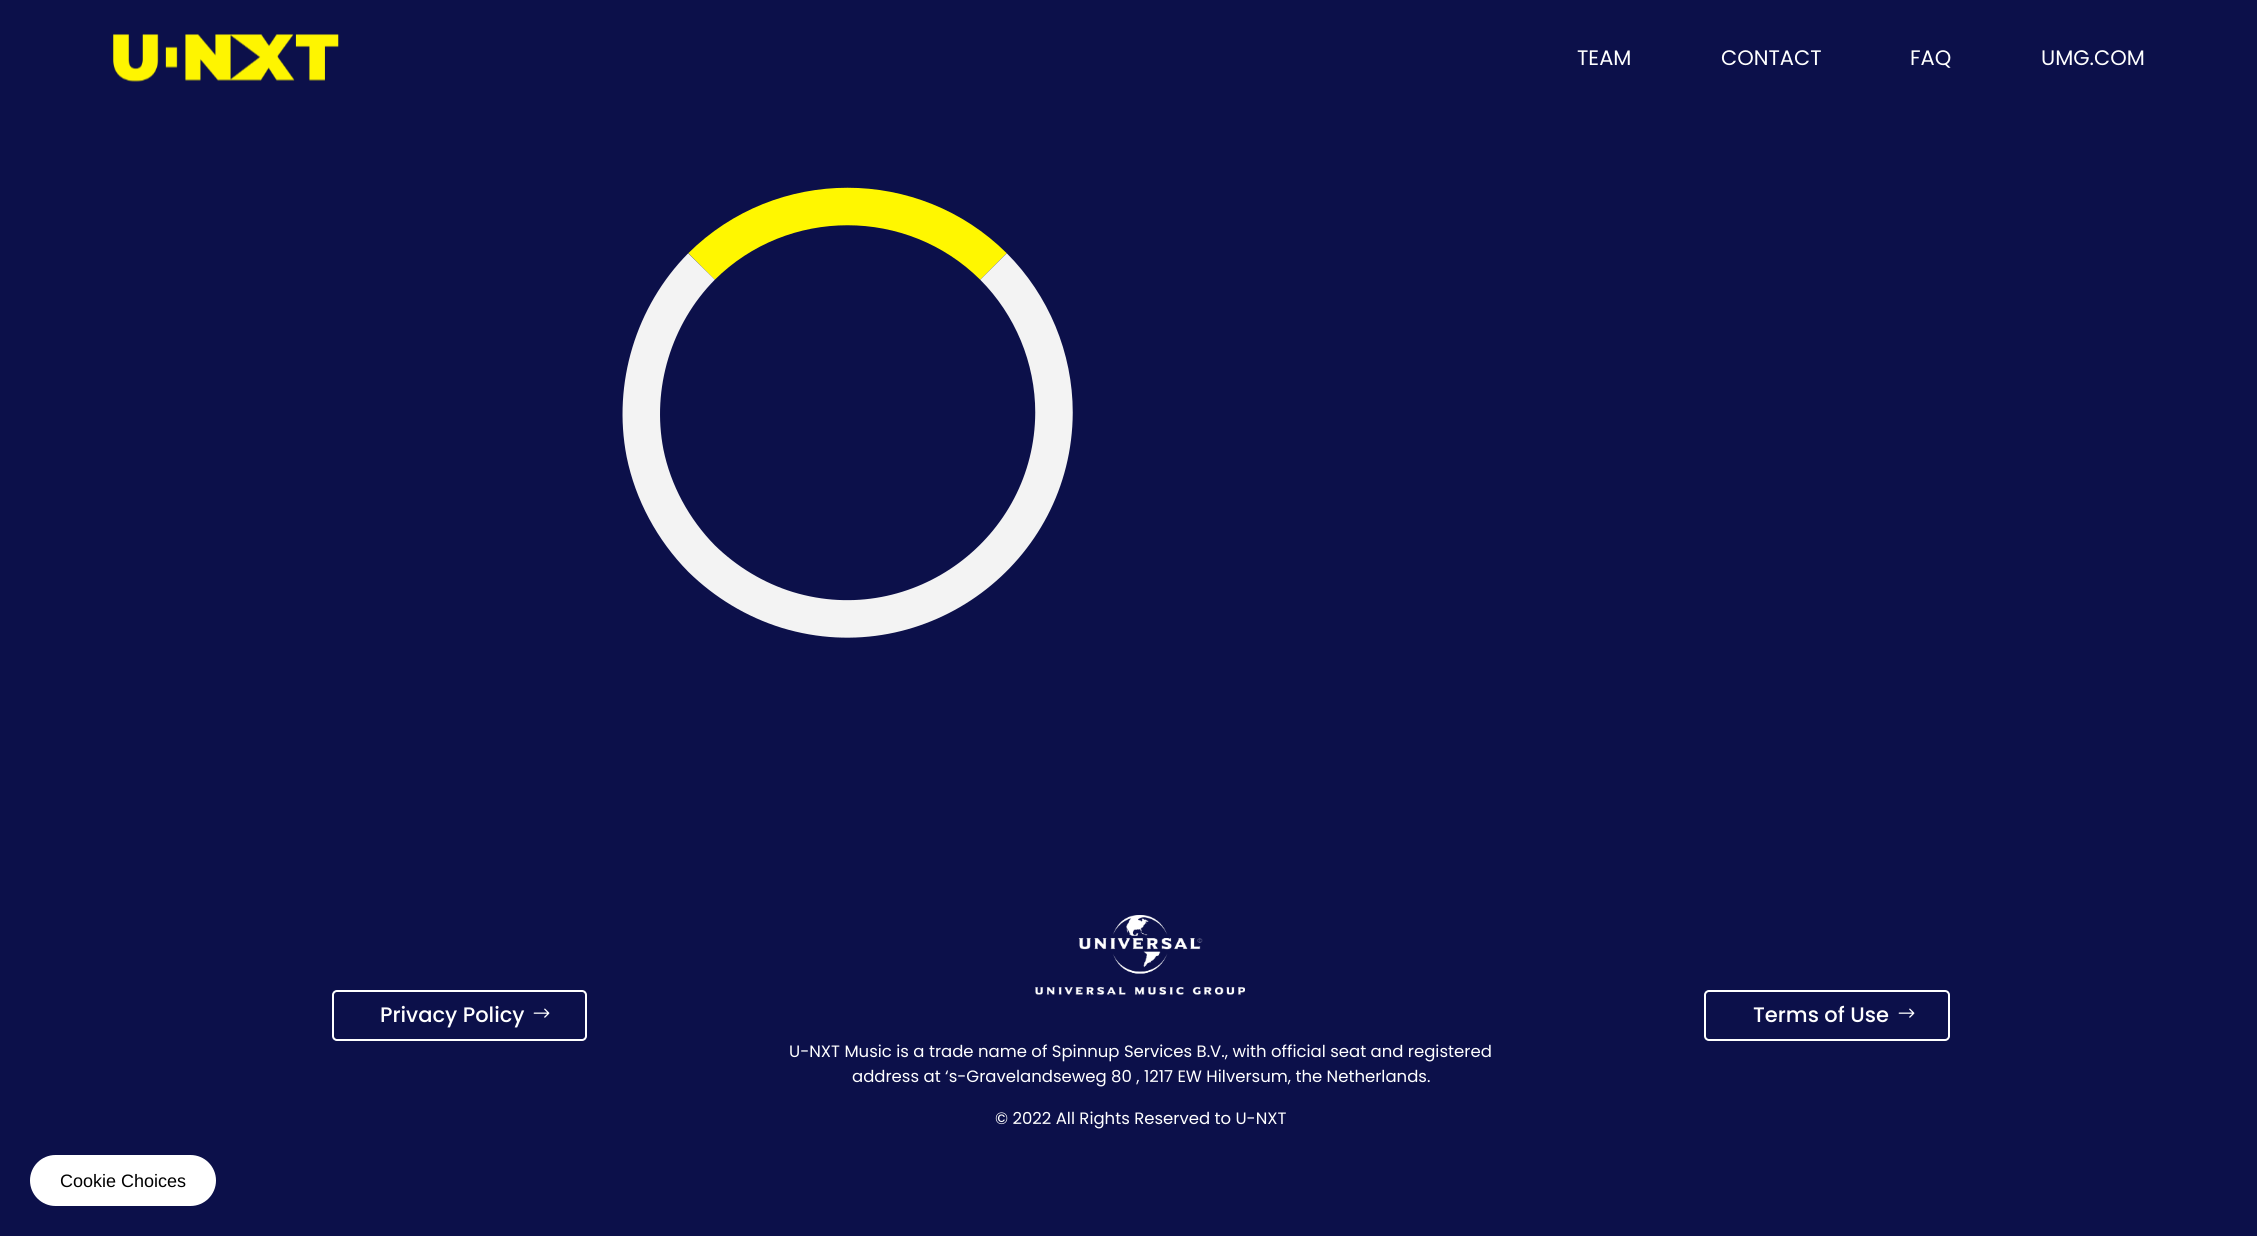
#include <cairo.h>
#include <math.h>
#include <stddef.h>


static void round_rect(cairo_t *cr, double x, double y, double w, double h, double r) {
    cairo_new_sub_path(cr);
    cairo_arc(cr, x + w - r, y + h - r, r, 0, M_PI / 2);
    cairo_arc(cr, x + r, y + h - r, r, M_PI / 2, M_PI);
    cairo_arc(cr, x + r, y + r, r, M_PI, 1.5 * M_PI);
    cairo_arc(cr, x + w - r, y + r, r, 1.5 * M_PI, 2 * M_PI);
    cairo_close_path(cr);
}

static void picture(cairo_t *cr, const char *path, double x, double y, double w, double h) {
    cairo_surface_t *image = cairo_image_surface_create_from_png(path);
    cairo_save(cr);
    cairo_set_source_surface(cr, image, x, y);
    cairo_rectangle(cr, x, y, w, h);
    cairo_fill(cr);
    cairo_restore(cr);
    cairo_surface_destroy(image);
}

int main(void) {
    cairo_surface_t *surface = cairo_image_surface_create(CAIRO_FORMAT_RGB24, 2257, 1236);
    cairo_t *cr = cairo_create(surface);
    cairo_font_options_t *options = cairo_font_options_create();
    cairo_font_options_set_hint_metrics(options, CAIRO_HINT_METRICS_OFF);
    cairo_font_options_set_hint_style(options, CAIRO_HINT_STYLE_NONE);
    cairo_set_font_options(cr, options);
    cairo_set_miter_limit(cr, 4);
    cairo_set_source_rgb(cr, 0.047, 0.063, 0.29);
    cairo_paint(cr);
    picture(cr, "img1.png", 113, 34, 226, 48);
    cairo_select_font_face(cr, "Poppins", CAIRO_FONT_SLANT_NORMAL, CAIRO_FONT_WEIGHT_NORMAL);
    cairo_set_font_size(cr, 21);
    cairo_set_source_rgb(cr, 1, 1, 1);
    cairo_move_to(cr, 1577, 65);
    cairo_show_text(cr, "TEAM");
    cairo_move_to(cr, 1721, 65);
    cairo_show_text(cr, "CONTACT");
    cairo_move_to(cr, 1910, 65);
    cairo_show_text(cr, "FAQ");
    cairo_move_to(cr, 2041, 65);
    cairo_show_text(cr, "UMG.COM");
    cairo_new_path(cr);
    cairo_move_to(cr, 701.5, 266.5);
    cairo_curve_to(cr, 782, 186.5, 913, 186.5, 993.5, 266.5);
    cairo_set_source_rgb(cr, 1, 0.965, 0);
    cairo_set_line_width(cr, 37.5);
    cairo_stroke(cr);
    cairo_new_path(cr);
    cairo_move_to(cr, 993.5, 266.5);
    cairo_curve_to(cr, 1032, 305, 1054, 358, 1054, 412.5);
    cairo_curve_to(cr, 1053.5, 550.5, 919.5, 650, 787.5, 610);
    cairo_curve_to(cr, 755, 600, 725.5, 582, 701.5, 558.5);
    cairo_curve_to(cr, 673, 529.5, 653, 492.5, 645, 453);
    cairo_curve_to(cr, 632, 386, 653.5, 315, 701.5, 266.5);
    cairo_set_source_rgb(cr, 0.953, 0.953, 0.953);
    cairo_stroke(cr);
    round_rect(cr, 333, 991, 253, 49, 4);
    cairo_set_source_rgb(cr, 1, 1, 1);
    cairo_set_line_width(cr, 2);
    cairo_stroke(cr);
    cairo_select_font_face(cr, "Poppins Medium", CAIRO_FONT_SLANT_NORMAL, CAIRO_FONT_WEIGHT_NORMAL);
    cairo_move_to(cr, 380, 1022);
    cairo_show_text(cr, "Privacy Policy");
    picture(cr, "img2.png", 533, 1008, 17, 10);
    round_rect(cr, 1705, 991, 244, 49, 4);
    cairo_stroke(cr);
    cairo_move_to(cr, 1753, 1022);
    cairo_show_text(cr, "Terms of Use");
    picture(cr, "img2.png", 1898, 1008, 17, 10);
    picture(cr, "img3.png", 1035, 915, 210, 80);
    cairo_select_font_face(cr, "Poppins", CAIRO_FONT_SLANT_NORMAL, CAIRO_FONT_WEIGHT_NORMAL);
    cairo_set_font_size(cr, 16.5);
    cairo_move_to(cr, 789, 1057);
    cairo_show_text(cr, "U-NXT Music is a trade name of Spinnup Services B.V., with official seat and registered");
    cairo_move_to(cr, 852, 1082);
    cairo_show_text(cr, "address at ‘s-Gravelandseweg 80 , 1217 EW Hilversum, the Netherlands.");
    cairo_move_to(cr, 995, 1124);
    cairo_show_text(cr, "© 2022 All Rights Reserved to U-NXT");
    round_rect(cr, 30, 1155, 186, 51, 25.5);
    cairo_fill(cr);
    cairo_select_font_face(cr, "Liberation Sans", CAIRO_FONT_SLANT_NORMAL, CAIRO_FONT_WEIGHT_NORMAL);
    cairo_set_font_size(cr, 18);
    cairo_set_source_rgb(cr, 0, 0, 0);
    cairo_move_to(cr, 60, 1187);
    cairo_show_text(cr, "Cookie Choices");
    cairo_surface_write_to_png(surface, "page.png");
    cairo_font_options_destroy(options);
    cairo_destroy(cr);
    cairo_surface_destroy(surface);
    return 0;
}
